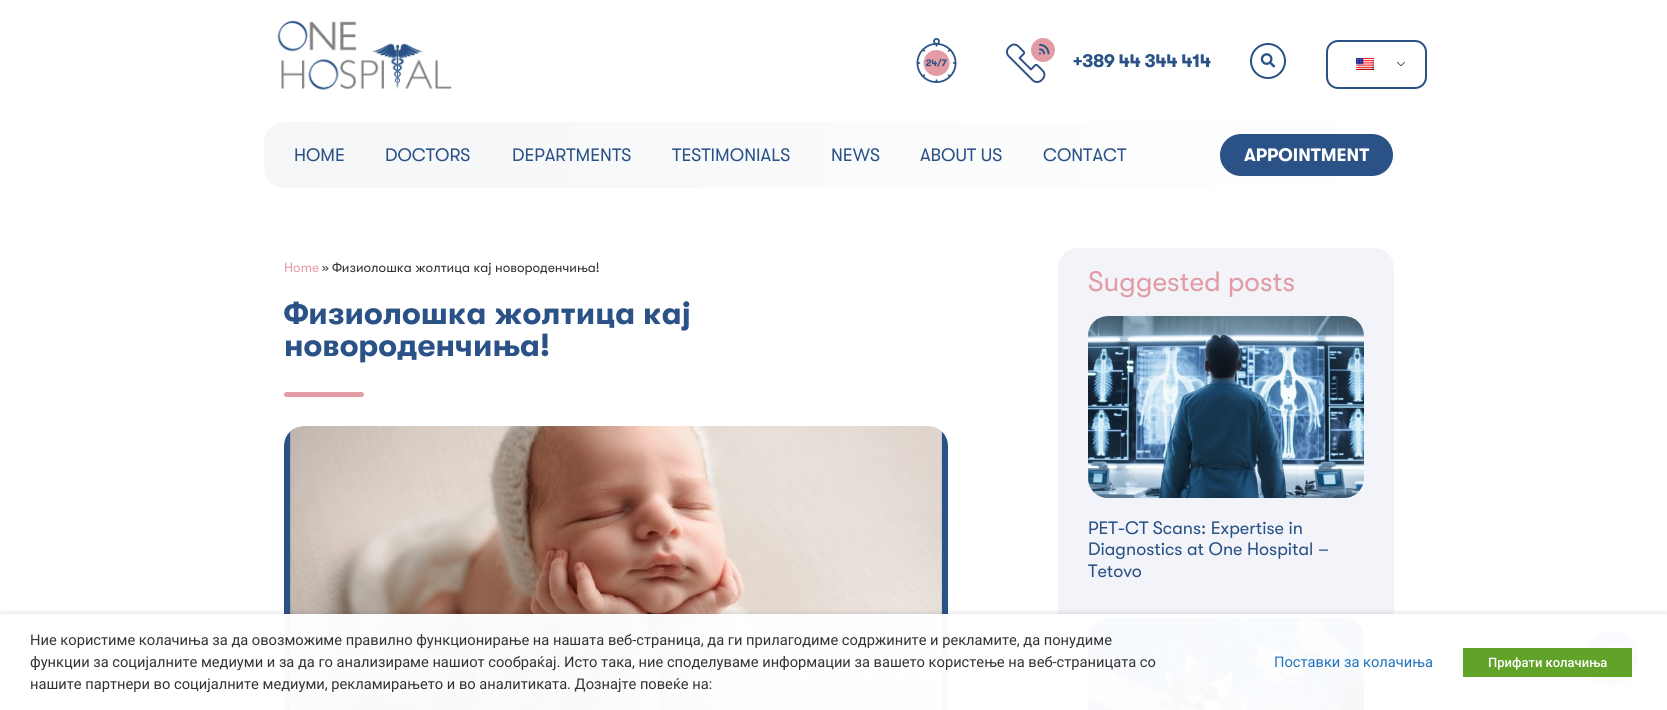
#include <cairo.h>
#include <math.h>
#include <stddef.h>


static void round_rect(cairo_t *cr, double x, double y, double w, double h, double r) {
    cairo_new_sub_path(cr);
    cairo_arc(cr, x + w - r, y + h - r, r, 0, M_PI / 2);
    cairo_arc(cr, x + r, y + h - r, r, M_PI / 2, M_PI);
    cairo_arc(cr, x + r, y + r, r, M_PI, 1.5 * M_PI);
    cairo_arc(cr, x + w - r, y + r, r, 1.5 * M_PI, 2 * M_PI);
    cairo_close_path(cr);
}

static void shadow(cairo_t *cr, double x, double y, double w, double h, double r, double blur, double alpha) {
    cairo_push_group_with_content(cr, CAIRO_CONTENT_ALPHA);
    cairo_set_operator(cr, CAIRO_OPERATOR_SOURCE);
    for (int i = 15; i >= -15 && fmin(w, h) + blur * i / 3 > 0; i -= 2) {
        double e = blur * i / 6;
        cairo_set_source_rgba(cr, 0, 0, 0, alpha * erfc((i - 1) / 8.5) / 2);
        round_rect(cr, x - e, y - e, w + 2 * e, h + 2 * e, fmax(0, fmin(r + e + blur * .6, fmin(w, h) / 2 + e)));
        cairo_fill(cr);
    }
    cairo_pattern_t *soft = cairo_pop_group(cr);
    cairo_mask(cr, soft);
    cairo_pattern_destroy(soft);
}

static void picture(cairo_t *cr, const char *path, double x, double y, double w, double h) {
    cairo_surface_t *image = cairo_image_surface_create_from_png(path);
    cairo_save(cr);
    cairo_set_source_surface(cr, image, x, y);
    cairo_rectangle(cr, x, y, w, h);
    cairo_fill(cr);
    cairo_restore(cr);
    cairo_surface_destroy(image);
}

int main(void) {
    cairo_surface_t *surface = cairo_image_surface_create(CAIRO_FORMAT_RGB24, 1667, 710);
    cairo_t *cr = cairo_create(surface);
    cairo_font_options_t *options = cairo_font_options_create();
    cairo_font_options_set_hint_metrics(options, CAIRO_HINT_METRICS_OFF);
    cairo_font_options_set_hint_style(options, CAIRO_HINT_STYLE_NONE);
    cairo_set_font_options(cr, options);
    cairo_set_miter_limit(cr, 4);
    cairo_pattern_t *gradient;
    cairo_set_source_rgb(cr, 1, 1, 1);
    cairo_paint(cr);
    picture(cr, "img1.png", 277, 20, 175, 70);
    picture(cr, "img2.png", 916, 38, 41, 45);
    picture(cr, "img3.png", 1006, 38, 205, 45);
    cairo_arc(cr, 1268, 61, 17, 0, 2 * M_PI);
    cairo_set_source_rgb(cr, 0.165, 0.322, 0.529);
    cairo_stroke(cr);
    picture(cr, "img4.png", 1260, 53, 16, 15);
    picture(cr, "img5.png", 1397, 61, 8, 5);
    round_rect(cr, 1327, 41, 99, 47, 11);
    cairo_stroke(cr);
    picture(cr, "img6.png", 1356, 58, 18, 12);
    gradient = cairo_pattern_create_linear(1404, 155, 264, 155);
    cairo_pattern_add_color_stop_rgba(gradient, 0, 1, 1, 1, 1);
    cairo_pattern_add_color_stop_rgba(gradient, 1, 0.961, 0.965, 0.973, 1);
    cairo_set_source(cr, gradient);
    cairo_pattern_destroy(gradient);
    round_rect(cr, 264, 122, 1140, 66, 20);
    cairo_fill(cr);
    cairo_select_font_face(cr, "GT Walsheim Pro", CAIRO_FONT_SLANT_NORMAL, CAIRO_FONT_WEIGHT_NORMAL);
    cairo_set_font_size(cr, 18);
    cairo_set_source_rgb(cr, 0.165, 0.322, 0.529);
    cairo_move_to(cr, 294, 161);
    cairo_show_text(cr, "HOME");
    cairo_move_to(cr, 385, 161);
    cairo_show_text(cr, "DOCTORS");
    cairo_move_to(cr, 512, 161);
    cairo_show_text(cr, "DEPARTMENTS");
    cairo_move_to(cr, 672, 161);
    cairo_show_text(cr, "TESTIMONIALS");
    cairo_move_to(cr, 831, 161);
    cairo_show_text(cr, "NEWS");
    cairo_move_to(cr, 920, 161);
    cairo_show_text(cr, "ABOUT US");
    cairo_move_to(cr, 1043, 161);
    cairo_show_text(cr, "CONTACT");
    round_rect(cr, 1220, 134, 173, 42, 21);
    cairo_fill(cr);
    cairo_select_font_face(cr, "GT Walsheim Pro", CAIRO_FONT_SLANT_NORMAL, CAIRO_FONT_WEIGHT_BOLD);
    cairo_set_source_rgb(cr, 1, 1, 1);
    cairo_move_to(cr, 1244, 161);
    cairo_show_text(cr, "APPOINTMENT");
    cairo_select_font_face(cr, "GT Walsheim Pro", CAIRO_FONT_SLANT_NORMAL, CAIRO_FONT_WEIGHT_NORMAL);
    cairo_set_font_size(cr, 13.6);
    cairo_set_source_rgb(cr, 0.89, 0.612, 0.643);
    cairo_move_to(cr, 284, 272);
    cairo_show_text(cr, "Home");
    cairo_set_source_rgb(cr, 0.2, 0.2, 0.2);
    cairo_move_to(cr, 322, 272);
    cairo_show_text(cr, "» Физиолошка жолтица кај новороденчиња!");
    cairo_select_font_face(cr, "GT Walsheim Pro", CAIRO_FONT_SLANT_NORMAL, CAIRO_FONT_WEIGHT_BOLD);
    cairo_set_font_size(cr, 32);
    cairo_set_source_rgb(cr, 0.165, 0.322, 0.529);
    cairo_move_to(cr, 284, 324);
    cairo_show_text(cr, "Физиолошка жолтица кај");
    cairo_move_to(cr, 284, 356);
    cairo_show_text(cr, "новороденчиња!");
    cairo_set_source_rgb(cr, 0.89, 0.612, 0.643);
    round_rect(cr, 284, 392, 80, 5, 2.5);
    cairo_fill(cr);
    picture(cr, "img7.png", 284, 426, 664, 284);
    cairo_set_source_rgb(cr, 0.949, 0.957, 0.976);
    round_rect(cr, 1058, 248, 336, 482, 20);
    cairo_fill(cr);
    cairo_select_font_face(cr, "GT Walsheim Pro", CAIRO_FONT_SLANT_NORMAL, CAIRO_FONT_WEIGHT_NORMAL);
    cairo_set_font_size(cr, 28);
    cairo_set_source_rgb(cr, 0.89, 0.612, 0.643);
    cairo_move_to(cr, 1088, 291);
    cairo_show_text(cr, "Suggested posts");
    picture(cr, "img8.png", 1088, 316, 276, 182);
    cairo_set_font_size(cr, 18);
    cairo_set_source_rgb(cr, 0.165, 0.322, 0.529);
    cairo_move_to(cr, 1088, 534);
    cairo_show_text(cr, "PET-CT Scans: Expertise in");
    cairo_move_to(cr, 1088, 555);
    cairo_show_text(cr, "Diagnostics at One Hospital –");
    cairo_move_to(cr, 1088, 577);
    cairo_show_text(cr, "Tetovo");
    picture(cr, "img9.png", 1088, 618, 276, 92);
    cairo_set_source_rgb(cr, 0, 0, 0);
    shadow(cr, 1584, 634, 54, 54, 27, 3, 0.25);
    picture(cr, "img10.png", 1586, 631, 52, 54);
    cairo_save(cr);
    cairo_rectangle(cr, 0, 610, 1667, 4);
    cairo_clip(cr);
    shadow(cr, 0, 619, 1667, 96, 0, 5, 0.5);
    cairo_restore(cr);
    cairo_set_source_rgba(cr, 1, 1, 1, 0.97);
    cairo_rectangle(cr, 284, 614, 1359, 96);
    cairo_fill(cr);
    cairo_select_font_face(cr, "Roboto", CAIRO_FONT_SLANT_NORMAL, CAIRO_FONT_WEIGHT_NORMAL);
    cairo_set_font_size(cr, 14.67);
    cairo_set_source_rgb(cr, 0.2, 0.2, 0.2);
    cairo_move_to(cr, 30, 645);
    cairo_show_text(cr, "Ние користиме колачиња за да овозможиме правилно функционирање на нашата веб-страница, да ги прилагодиме содржините и рекламите, да понудиме");
    cairo_move_to(cr, 30, 667);
    cairo_show_text(cr, "функции за социјалните медиуми и за да го анализираме нашиот сообраќај. Исто така, ние споделуваме информации за вашето користење на веб-страницата со");
    cairo_move_to(cr, 30, 689);
    cairo_show_text(cr, "нашите партнери во социјалните медиуми, рекламирањето и во аналитиката. Дознајте повеќе на:");
    cairo_set_source_rgb(cr, 0.118, 0.451, 0.745);
    cairo_move_to(cr, 1274, 667);
    cairo_show_text(cr, "Поставки за колачиња");
    cairo_set_source_rgb(cr, 0.38, 0.635, 0.161);
    cairo_rectangle(cr, 1463, 648, 169, 29);
    cairo_fill(cr);
    cairo_select_font_face(cr, "Roboto Medium", CAIRO_FONT_SLANT_NORMAL, CAIRO_FONT_WEIGHT_NORMAL);
    cairo_set_font_size(cr, 13);
    cairo_set_source_rgb(cr, 1, 1, 1);
    cairo_move_to(cr, 1488, 667);
    cairo_show_text(cr, "Прифати колачиња");
    cairo_surface_write_to_png(surface, "page.png");
    cairo_font_options_destroy(options);
    cairo_destroy(cr);
    cairo_surface_destroy(surface);
    return 0;
}
